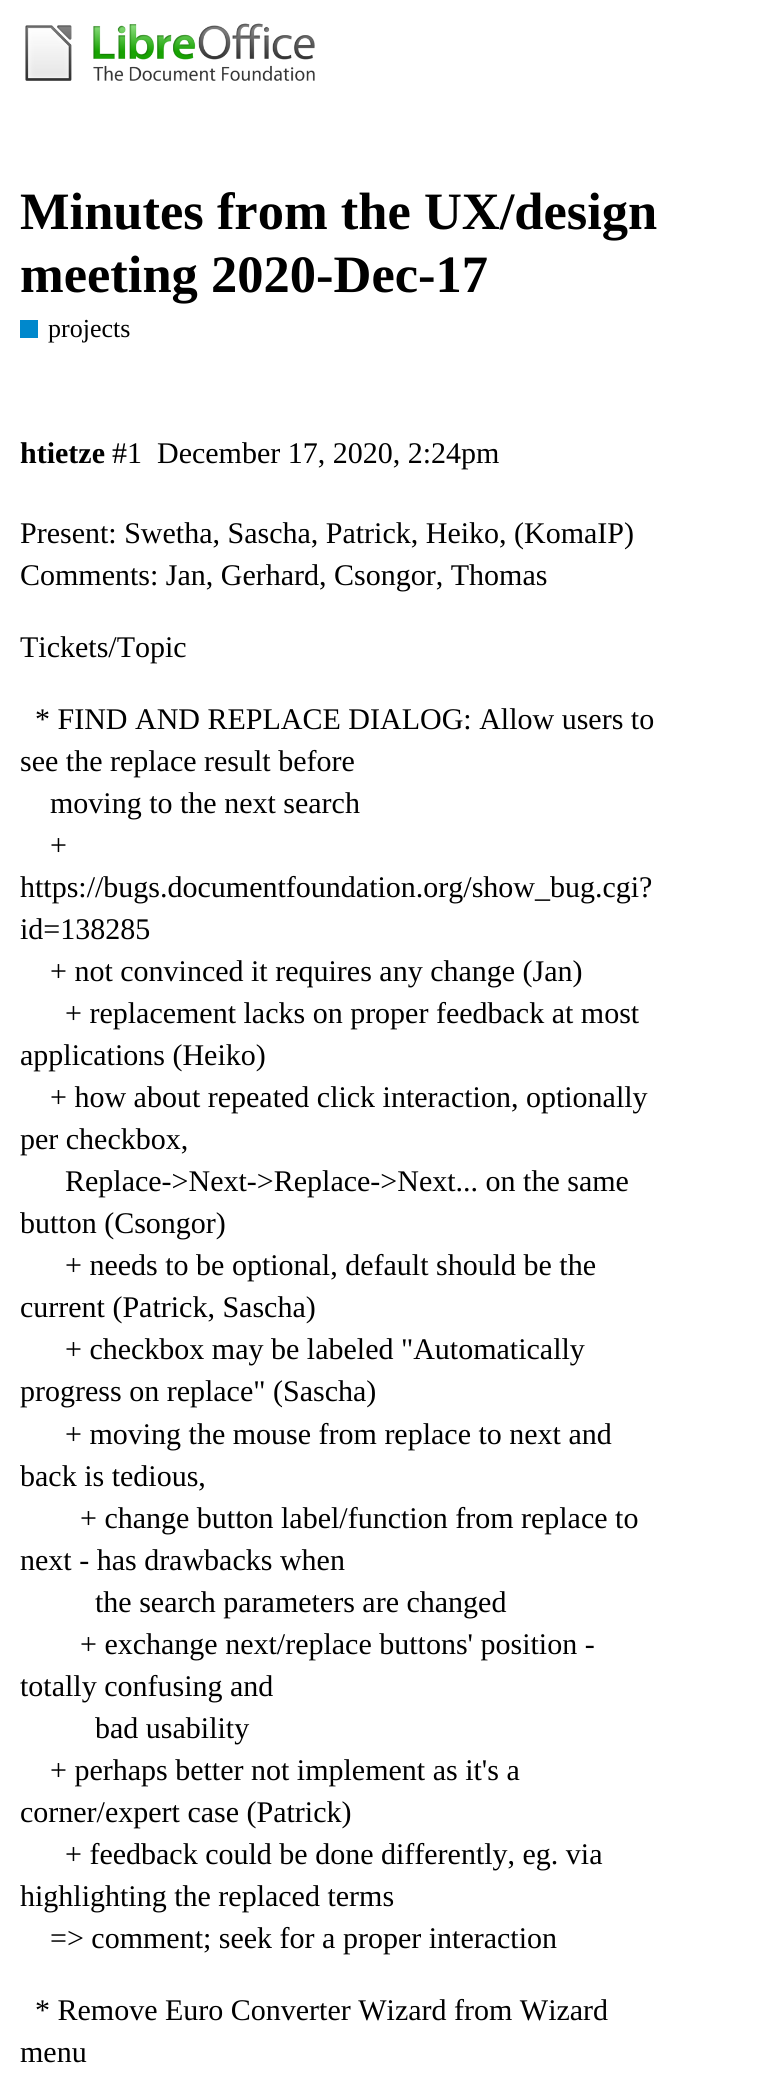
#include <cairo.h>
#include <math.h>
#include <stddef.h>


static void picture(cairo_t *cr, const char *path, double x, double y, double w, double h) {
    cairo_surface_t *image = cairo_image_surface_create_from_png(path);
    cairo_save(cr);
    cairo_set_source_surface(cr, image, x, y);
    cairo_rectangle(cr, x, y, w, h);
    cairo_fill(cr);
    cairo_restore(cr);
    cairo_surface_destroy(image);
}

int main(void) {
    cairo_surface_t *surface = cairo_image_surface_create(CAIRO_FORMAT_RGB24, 780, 2080);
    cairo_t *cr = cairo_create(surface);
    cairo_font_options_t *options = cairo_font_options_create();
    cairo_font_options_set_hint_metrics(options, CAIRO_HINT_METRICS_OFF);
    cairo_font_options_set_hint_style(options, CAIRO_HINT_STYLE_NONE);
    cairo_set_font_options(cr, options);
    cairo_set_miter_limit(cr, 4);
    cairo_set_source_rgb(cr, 1, 1, 1);
    cairo_paint(cr);
    picture(cr, "img1.png", 25, 23, 290, 58);
    cairo_select_font_face(cr, "Liberation Serif", CAIRO_FONT_SLANT_NORMAL, CAIRO_FONT_WEIGHT_BOLD);
    cairo_set_font_size(cr, 52.5);
    cairo_set_source_rgb(cr, 0, 0, 0);
    cairo_move_to(cr, 20, 229);
    cairo_show_text(cr, "Minutes from the UX/design");
    cairo_move_to(cr, 20, 292);
    cairo_show_text(cr, "meeting 2020-Dec-17");
    cairo_set_source_rgb(cr, 0, 0.533, 0.8);
    cairo_rectangle(cr, 20, 320, 18, 18);
    cairo_fill(cr);
    cairo_select_font_face(cr, "Liberation Serif", CAIRO_FONT_SLANT_NORMAL, CAIRO_FONT_WEIGHT_NORMAL);
    cairo_set_font_size(cr, 26);
    cairo_set_source_rgb(cr, 0, 0, 0);
    cairo_move_to(cr, 48, 337);
    cairo_show_text(cr, "projects");
    cairo_select_font_face(cr, "Liberation Serif", CAIRO_FONT_SLANT_NORMAL, CAIRO_FONT_WEIGHT_BOLD);
    cairo_set_font_size(cr, 30);
    cairo_move_to(cr, 20, 463);
    cairo_show_text(cr, "htietze");
    cairo_select_font_face(cr, "Liberation Serif", CAIRO_FONT_SLANT_NORMAL, CAIRO_FONT_WEIGHT_NORMAL);
    cairo_move_to(cr, 112, 463);
    cairo_show_text(cr, "#1");
    cairo_move_to(cr, 157, 463);
    cairo_show_text(cr, "December 17, 2020, 2:24pm");
    cairo_move_to(cr, 20, 543);
    cairo_show_text(cr, "Present: Swetha, Sascha, Patrick, Heiko, (KomaIP)");
    cairo_move_to(cr, 20, 585);
    cairo_show_text(cr, "Comments: Jan, Gerhard, Csongor, Thomas");
    cairo_move_to(cr, 20, 657);
    cairo_show_text(cr, "Tickets/Topic");
    cairo_move_to(cr, 35, 729);
    cairo_show_text(cr, "* FIND AND REPLACE DIALOG: Allow users to");
    cairo_move_to(cr, 20, 771);
    cairo_show_text(cr, "see the replace result before");
    cairo_move_to(cr, 50, 813);
    cairo_show_text(cr, "moving to the next search");
    cairo_move_to(cr, 50, 855);
    cairo_show_text(cr, "+");
    cairo_move_to(cr, 20, 897);
    cairo_show_text(cr, "https://bugs.documentfoundation.org/show_bug.cgi?");
    cairo_move_to(cr, 20, 939);
    cairo_show_text(cr, "id=138285");
    cairo_move_to(cr, 50, 981);
    cairo_show_text(cr, "+ not convinced it requires any change (Jan)");
    cairo_move_to(cr, 65, 1023);
    cairo_show_text(cr, "+ replacement lacks on proper feedback at most");
    cairo_move_to(cr, 20, 1065);
    cairo_show_text(cr, "applications (Heiko)");
    cairo_move_to(cr, 50, 1107);
    cairo_show_text(cr, "+ how about repeated click interaction, optionally");
    cairo_move_to(cr, 20, 1149);
    cairo_show_text(cr, "per checkbox,");
    cairo_move_to(cr, 65, 1191);
    cairo_show_text(cr, "Replace->Next->Replace->Next... on the same");
    cairo_move_to(cr, 20, 1233);
    cairo_show_text(cr, "button (Csongor)");
    cairo_move_to(cr, 65, 1275);
    cairo_show_text(cr, "+ needs to be optional, default should be the");
    cairo_move_to(cr, 20, 1317);
    cairo_show_text(cr, "current (Patrick, Sascha)");
    cairo_move_to(cr, 65, 1359);
    cairo_show_text(cr, "+ checkbox may be labeled \"Automatically");
    cairo_move_to(cr, 20, 1401);
    cairo_show_text(cr, "progress on replace\" (Sascha)");
    cairo_move_to(cr, 65, 1444);
    cairo_show_text(cr, "+ moving the mouse from replace to next and");
    cairo_move_to(cr, 20, 1486);
    cairo_show_text(cr, "back is tedious,");
    cairo_move_to(cr, 80, 1528);
    cairo_show_text(cr, "+ change button label/function from replace to");
    cairo_move_to(cr, 20, 1570);
    cairo_show_text(cr, "next - has drawbacks when");
    cairo_move_to(cr, 95, 1612);
    cairo_show_text(cr, "the search parameters are changed");
    cairo_move_to(cr, 80, 1654);
    cairo_show_text(cr, "+ exchange next/replace buttons' position -");
    cairo_move_to(cr, 20, 1696);
    cairo_show_text(cr, "totally confusing and");
    cairo_move_to(cr, 95, 1738);
    cairo_show_text(cr, "bad usability");
    cairo_move_to(cr, 50, 1780);
    cairo_show_text(cr, "+ perhaps better not implement as it's a");
    cairo_move_to(cr, 20, 1822);
    cairo_show_text(cr, "corner/expert case (Patrick)");
    cairo_move_to(cr, 65, 1864);
    cairo_show_text(cr, "+ feedback could be done differently, eg. via");
    cairo_move_to(cr, 20, 1906);
    cairo_show_text(cr, "highlighting the replaced terms");
    cairo_move_to(cr, 50, 1948);
    cairo_show_text(cr, "=> comment; seek for a proper interaction");
    cairo_move_to(cr, 35, 2020);
    cairo_show_text(cr, "* Remove Euro Converter Wizard from Wizard");
    cairo_move_to(cr, 20, 2062);
    cairo_show_text(cr, "menu");
    cairo_surface_write_to_png(surface, "page.png");
    cairo_font_options_destroy(options);
    cairo_destroy(cr);
    cairo_surface_destroy(surface);
    return 0;
}
